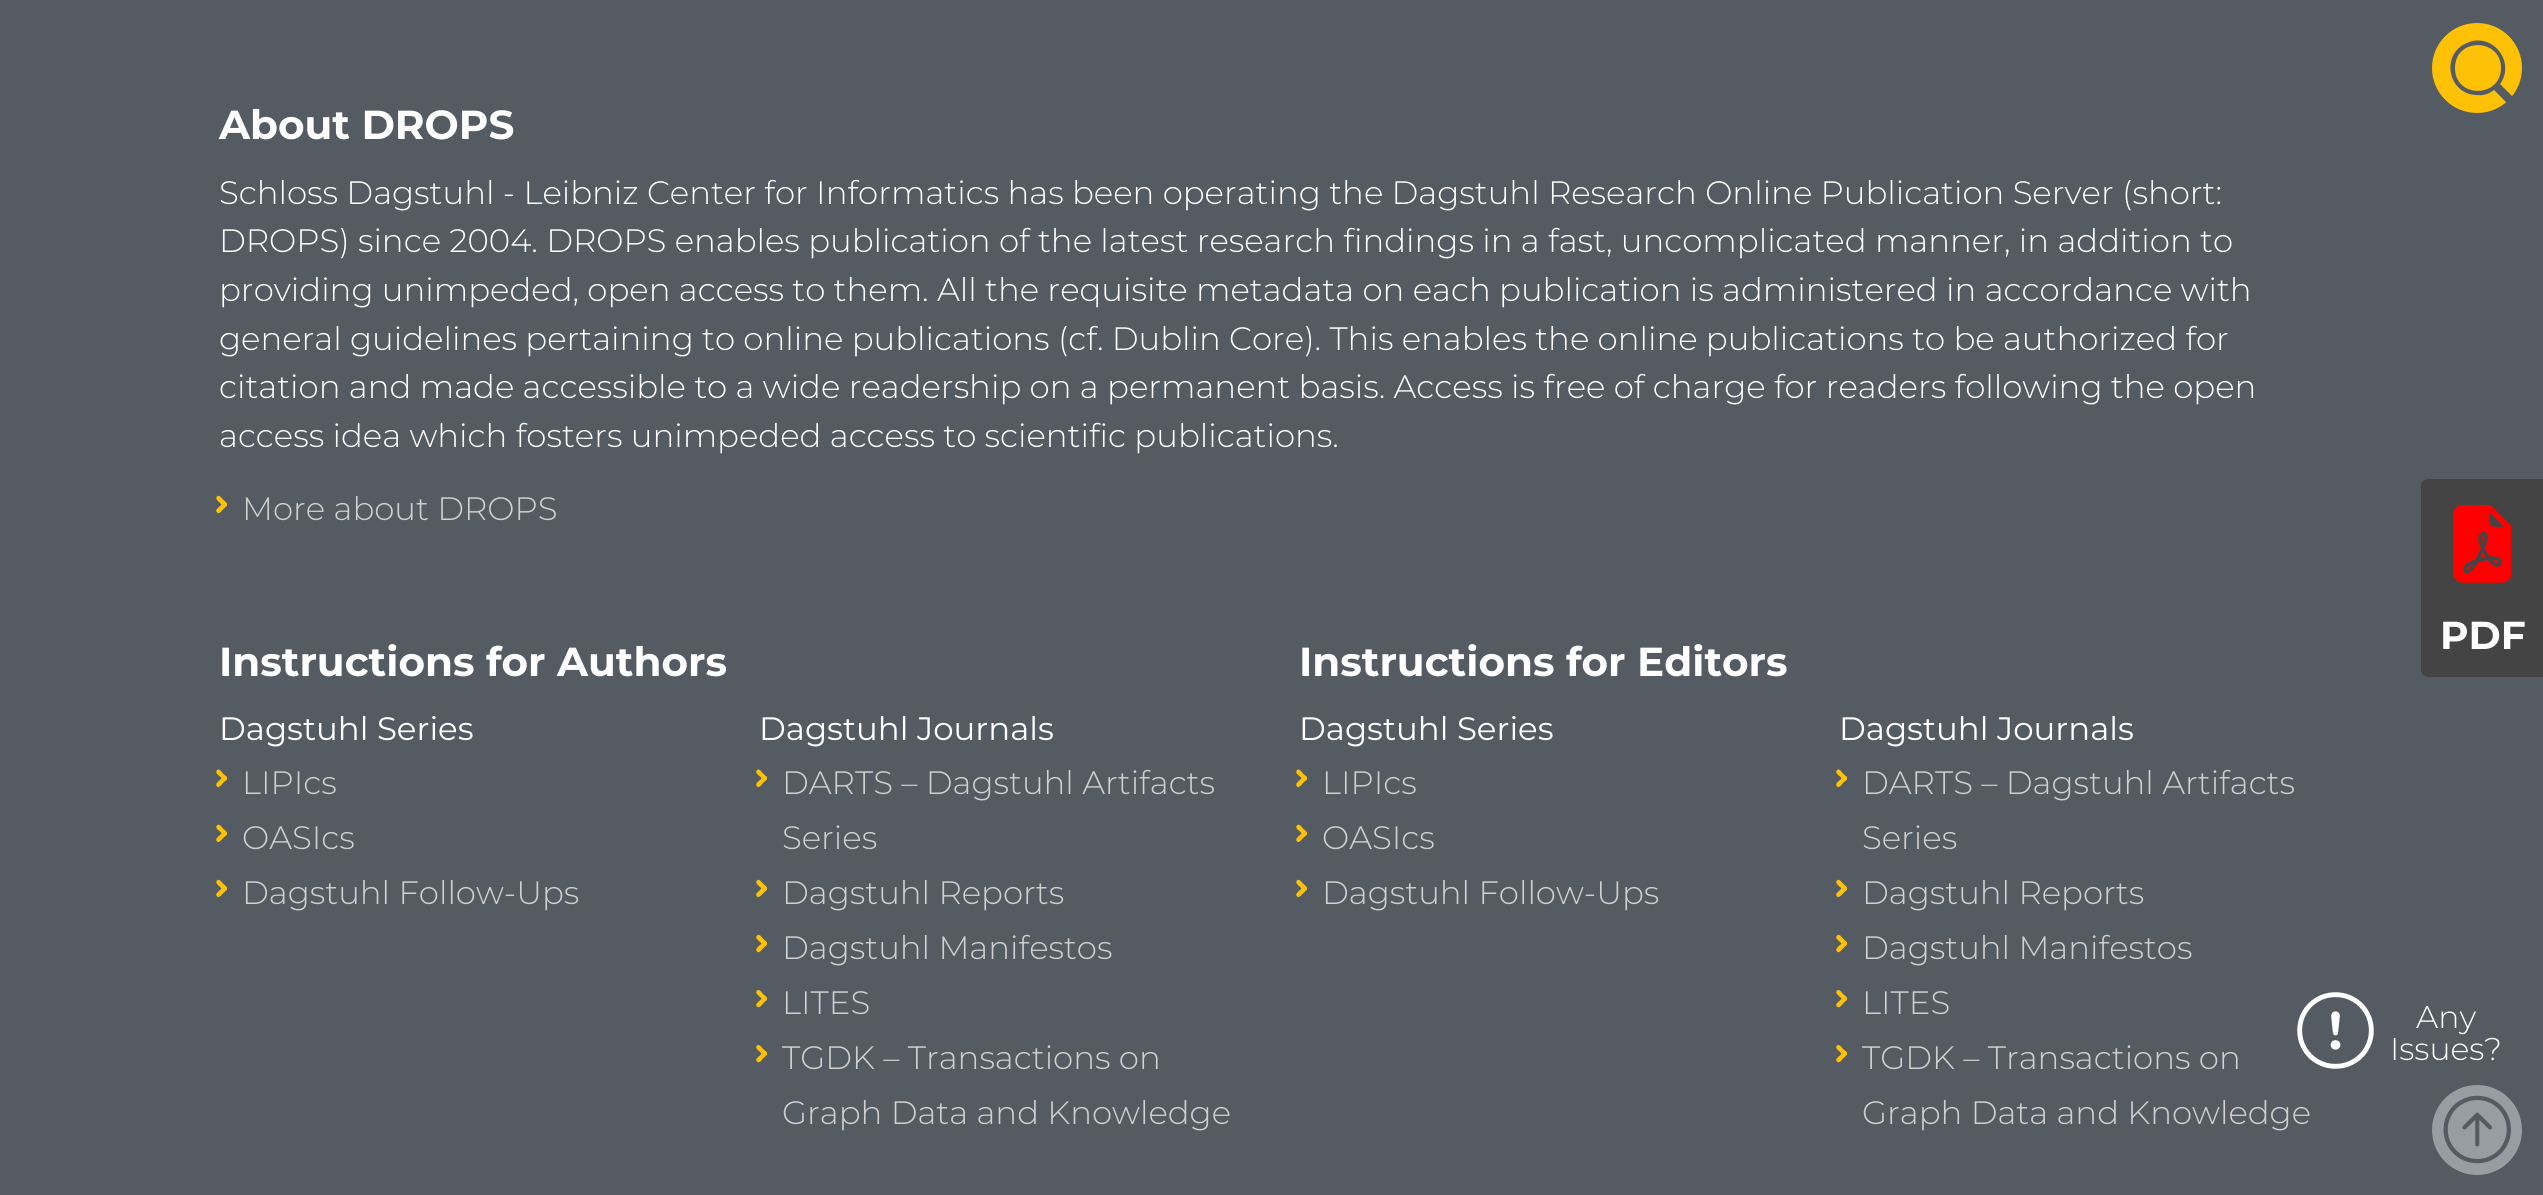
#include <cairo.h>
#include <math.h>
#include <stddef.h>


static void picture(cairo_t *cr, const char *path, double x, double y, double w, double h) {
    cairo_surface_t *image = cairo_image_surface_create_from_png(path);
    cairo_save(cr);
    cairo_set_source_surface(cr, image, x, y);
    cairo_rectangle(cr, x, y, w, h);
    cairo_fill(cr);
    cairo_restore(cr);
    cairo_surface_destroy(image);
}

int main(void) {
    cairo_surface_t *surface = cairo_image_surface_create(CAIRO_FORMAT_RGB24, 2543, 1195);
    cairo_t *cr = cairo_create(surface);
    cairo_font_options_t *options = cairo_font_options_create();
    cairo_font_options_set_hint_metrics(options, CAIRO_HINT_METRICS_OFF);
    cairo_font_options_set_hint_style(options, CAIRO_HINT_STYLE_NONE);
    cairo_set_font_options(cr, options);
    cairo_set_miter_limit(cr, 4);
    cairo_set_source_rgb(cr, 0.329, 0.357, 0.384);
    cairo_paint(cr);
    cairo_select_font_face(cr, "Montserrat", CAIRO_FONT_SLANT_NORMAL, CAIRO_FONT_WEIGHT_BOLD);
    cairo_set_font_size(cr, 40.5);
    cairo_set_source_rgb(cr, 1, 1, 1);
    cairo_move_to(cr, 219, 139);
    cairo_show_text(cr, "About DROPS");
    cairo_select_font_face(cr, "Montserrat Light", CAIRO_FONT_SLANT_NORMAL, CAIRO_FONT_WEIGHT_NORMAL);
    cairo_set_font_size(cr, 32.4);
    cairo_move_to(cr, 219, 204);
    cairo_show_text(cr, "Schloss Dagstuhl - Leibniz Center for Informatics has been operating the Dagstuhl Research Online Publication Server (short:");
    cairo_move_to(cr, 219, 252);
    cairo_show_text(cr, "DROPS) since 2004. DROPS enables publication of the latest research findings in a fast, uncomplicated manner, in addition to");
    cairo_move_to(cr, 219, 301);
    cairo_show_text(cr, "providing unimpeded, open access to them. All the requisite metadata on each publication is administered in accordance with");
    cairo_move_to(cr, 219, 350);
    cairo_show_text(cr, "general guidelines pertaining to online publications (cf. Dublin Core). This enables the online publications to be authorized for");
    cairo_move_to(cr, 219, 398);
    cairo_show_text(cr, "citation and made accessible to a wide readership on a permanent basis. Access is free of charge for readers following the open");
    cairo_move_to(cr, 219, 447);
    cairo_show_text(cr, "access idea which fosters unimpeded access to scientific publications.");
    cairo_set_source_rgb(cr, 1, 0.757, 0.027);
    cairo_new_path(cr);
    cairo_move_to(cr, 217, 496.5);
    cairo_curve_to(cr, 219, 494, 222, 498.5, 223, 499.5);
    cairo_curve_to(cr, 224.5, 501, 228.5, 503.5, 226.5, 506);
    cairo_curve_to(cr, 224, 508.5, 221.5, 504, 220, 503);
    cairo_curve_to(cr, 218.5, 501.5, 214.5, 498.5, 217, 496.5);
    cairo_close_path(cr);
    cairo_fill(cr);
    cairo_set_source_rgb(cr, 0.824, 0.82, 0.82);
    cairo_move_to(cr, 242, 520);
    cairo_show_text(cr, "More about DROPS");
    cairo_set_source_rgb(cr, 1, 0.757, 0.027);
    cairo_new_path(cr);
    cairo_move_to(cr, 226.5, 503);
    cairo_curve_to(cr, 228.5, 505, 224.5, 508, 223, 509.5);
    cairo_curve_to(cr, 222, 510.5, 219, 515, 217, 512.5);
    cairo_curve_to(cr, 214.5, 510, 218.5, 507.5, 220, 506);
    cairo_curve_to(cr, 221.5, 505, 224, 500.5, 226.5, 503);
    cairo_close_path(cr);
    cairo_fill(cr);
    cairo_select_font_face(cr, "Montserrat", CAIRO_FONT_SLANT_NORMAL, CAIRO_FONT_WEIGHT_BOLD);
    cairo_set_font_size(cr, 40.5);
    cairo_set_source_rgb(cr, 1, 1, 1);
    cairo_move_to(cr, 219, 676);
    cairo_show_text(cr, "Instructions for Authors");
    cairo_select_font_face(cr, "Montserrat", CAIRO_FONT_SLANT_NORMAL, CAIRO_FONT_WEIGHT_NORMAL);
    cairo_set_font_size(cr, 32.4);
    cairo_move_to(cr, 219, 740);
    cairo_show_text(cr, "Dagstuhl Series");
    cairo_set_source_rgb(cr, 1, 0.757, 0.027);
    cairo_new_path(cr);
    cairo_move_to(cr, 217, 770);
    cairo_curve_to(cr, 219, 768, 222, 772, 223, 773.5);
    cairo_curve_to(cr, 224.5, 775, 228.5, 777.5, 226.5, 780);
    cairo_curve_to(cr, 224, 782, 221.5, 778, 220, 776.5);
    cairo_curve_to(cr, 218.5, 775.5, 214.5, 772.5, 217, 770);
    cairo_close_path(cr);
    cairo_fill(cr);
    cairo_select_font_face(cr, "Montserrat Light", CAIRO_FONT_SLANT_NORMAL, CAIRO_FONT_WEIGHT_NORMAL);
    cairo_set_source_rgb(cr, 0.824, 0.82, 0.82);
    cairo_move_to(cr, 242, 794);
    cairo_show_text(cr, "LIPIcs");
    cairo_set_source_rgb(cr, 1, 0.757, 0.027);
    cairo_new_path(cr);
    cairo_move_to(cr, 226.5, 776.5);
    cairo_curve_to(cr, 228.5, 779, 224.5, 781.5, 223, 783);
    cairo_curve_to(cr, 222, 784.5, 219, 788.5, 217, 786.5);
    cairo_curve_to(cr, 214.5, 784, 218.5, 781, 220, 780);
    cairo_curve_to(cr, 221.5, 778.5, 224, 774.5, 226.5, 776.5);
    cairo_close_path(cr);
    cairo_fill(cr);
    cairo_new_path(cr);
    cairo_move_to(cr, 217, 825.5);
    cairo_curve_to(cr, 219, 823, 222, 827, 223, 828.5);
    cairo_curve_to(cr, 224.5, 830, 228.5, 832.5, 226.5, 835);
    cairo_curve_to(cr, 224, 837, 221.5, 833, 220, 831.5);
    cairo_curve_to(cr, 218.5, 830.5, 214.5, 827.5, 217, 825.5);
    cairo_close_path(cr);
    cairo_fill(cr);
    cairo_set_source_rgb(cr, 0.824, 0.82, 0.82);
    cairo_move_to(cr, 242, 849);
    cairo_show_text(cr, "OASIcs");
    cairo_set_source_rgb(cr, 1, 0.757, 0.027);
    cairo_new_path(cr);
    cairo_move_to(cr, 226.5, 832);
    cairo_curve_to(cr, 228.5, 834, 224.5, 837, 223, 838);
    cairo_curve_to(cr, 222, 839.5, 219, 843.5, 217, 841.5);
    cairo_curve_to(cr, 214.5, 839, 218.5, 836.5, 220, 835);
    cairo_curve_to(cr, 221.5, 833.5, 224, 829.5, 226.5, 832);
    cairo_close_path(cr);
    cairo_fill(cr);
    cairo_new_path(cr);
    cairo_move_to(cr, 217, 880.5);
    cairo_curve_to(cr, 219, 878, 222, 882.5, 223, 883.5);
    cairo_curve_to(cr, 224.5, 885, 228.5, 887.5, 226.5, 890);
    cairo_curve_to(cr, 224, 892.5, 221.5, 888, 220, 887);
    cairo_curve_to(cr, 218.5, 885.5, 214.5, 882.5, 217, 880.5);
    cairo_close_path(cr);
    cairo_fill(cr);
    cairo_set_source_rgb(cr, 0.824, 0.82, 0.82);
    cairo_move_to(cr, 242, 904);
    cairo_show_text(cr, "Dagstuhl Follow-Ups");
    cairo_set_source_rgb(cr, 1, 0.757, 0.027);
    cairo_new_path(cr);
    cairo_move_to(cr, 226.5, 887);
    cairo_curve_to(cr, 228.5, 889, 224.5, 892, 223, 893.5);
    cairo_curve_to(cr, 222, 894.5, 219, 898.5, 217, 896.5);
    cairo_curve_to(cr, 214.5, 894, 218.5, 891.5, 220, 890);
    cairo_curve_to(cr, 221.5, 888.5, 224, 884.5, 226.5, 887);
    cairo_close_path(cr);
    cairo_fill(cr);
    cairo_select_font_face(cr, "Montserrat", CAIRO_FONT_SLANT_NORMAL, CAIRO_FONT_WEIGHT_NORMAL);
    cairo_set_source_rgb(cr, 1, 1, 1);
    cairo_move_to(cr, 759, 740);
    cairo_show_text(cr, "Dagstuhl Journals");
    cairo_set_source_rgb(cr, 1, 0.757, 0.027);
    cairo_new_path(cr);
    cairo_move_to(cr, 757, 770);
    cairo_curve_to(cr, 759, 768, 762, 772, 763, 773.5);
    cairo_curve_to(cr, 764.5, 775, 768.5, 777.5, 766.5, 780);
    cairo_curve_to(cr, 764, 782, 761.5, 778, 760, 776.5);
    cairo_curve_to(cr, 758.5, 775.5, 754.5, 772.5, 757, 770);
    cairo_close_path(cr);
    cairo_fill(cr);
    cairo_select_font_face(cr, "Montserrat Light", CAIRO_FONT_SLANT_NORMAL, CAIRO_FONT_WEIGHT_NORMAL);
    cairo_set_source_rgb(cr, 0.824, 0.82, 0.82);
    cairo_move_to(cr, 782, 794);
    cairo_show_text(cr, "DARTS – Dagstuhl Artifacts");
    cairo_set_source_rgb(cr, 1, 0.757, 0.027);
    cairo_new_path(cr);
    cairo_move_to(cr, 766.5, 776.5);
    cairo_curve_to(cr, 768.5, 779, 764.5, 781.5, 763, 783);
    cairo_curve_to(cr, 762, 784.5, 759, 788.5, 757, 786.5);
    cairo_curve_to(cr, 754.5, 784, 758.5, 781, 760, 780);
    cairo_curve_to(cr, 761.5, 778.5, 764, 774.5, 766.5, 776.5);
    cairo_close_path(cr);
    cairo_fill(cr);
    cairo_set_source_rgb(cr, 0.824, 0.82, 0.82);
    cairo_move_to(cr, 782, 849);
    cairo_show_text(cr, "Series");
    cairo_set_source_rgb(cr, 1, 0.757, 0.027);
    cairo_new_path(cr);
    cairo_move_to(cr, 757, 880.5);
    cairo_curve_to(cr, 759, 878, 762, 882.5, 763, 883.5);
    cairo_curve_to(cr, 764.5, 885, 768.5, 887.5, 766.5, 890);
    cairo_curve_to(cr, 764, 892.5, 761.5, 888, 760, 887);
    cairo_curve_to(cr, 758.5, 885.5, 754.5, 882.5, 757, 880.5);
    cairo_close_path(cr);
    cairo_fill(cr);
    cairo_set_source_rgb(cr, 0.824, 0.82, 0.82);
    cairo_move_to(cr, 782, 904);
    cairo_show_text(cr, "Dagstuhl Reports");
    cairo_set_source_rgb(cr, 1, 0.757, 0.027);
    cairo_new_path(cr);
    cairo_move_to(cr, 766.5, 887);
    cairo_curve_to(cr, 768.5, 889, 764.5, 892, 763, 893.5);
    cairo_curve_to(cr, 762, 894.5, 759, 898.5, 757, 896.5);
    cairo_curve_to(cr, 754.5, 894, 758.5, 891.5, 760, 890);
    cairo_curve_to(cr, 761.5, 888.5, 764, 884.5, 766.5, 887);
    cairo_close_path(cr);
    cairo_fill(cr);
    cairo_new_path(cr);
    cairo_move_to(cr, 757, 935.5);
    cairo_curve_to(cr, 759, 933, 762, 937.5, 763, 938.5);
    cairo_curve_to(cr, 764.5, 940, 768.5, 943, 766.5, 945);
    cairo_curve_to(cr, 764, 947.5, 761.5, 943, 760, 942);
    cairo_curve_to(cr, 758.5, 940.5, 754.5, 938, 757, 935.5);
    cairo_close_path(cr);
    cairo_fill(cr);
    cairo_set_source_rgb(cr, 0.824, 0.82, 0.82);
    cairo_move_to(cr, 782, 959);
    cairo_show_text(cr, "Dagstuhl Manifestos");
    cairo_set_source_rgb(cr, 1, 0.757, 0.027);
    cairo_new_path(cr);
    cairo_move_to(cr, 766.5, 942);
    cairo_curve_to(cr, 768.5, 944.5, 764.5, 947, 763, 948.5);
    cairo_curve_to(cr, 762, 949.5, 759, 954, 757, 951.5);
    cairo_curve_to(cr, 754.5, 949, 758.5, 946.5, 760, 945);
    cairo_curve_to(cr, 761.5, 944, 764, 939.5, 766.5, 942);
    cairo_close_path(cr);
    cairo_fill(cr);
    cairo_new_path(cr);
    cairo_move_to(cr, 757, 990.5);
    cairo_curve_to(cr, 759, 988.5, 762, 992.5, 763, 994);
    cairo_curve_to(cr, 764.5, 995, 768.5, 998, 766.5, 1000);
    cairo_curve_to(cr, 764, 1002.5, 761.5, 998.5, 760, 997);
    cairo_curve_to(cr, 758.5, 995.5, 754.5, 993, 757, 990.5);
    cairo_close_path(cr);
    cairo_fill(cr);
    cairo_set_source_rgb(cr, 0.824, 0.82, 0.82);
    cairo_move_to(cr, 782, 1014);
    cairo_show_text(cr, "LITES");
    cairo_set_source_rgb(cr, 1, 0.757, 0.027);
    cairo_new_path(cr);
    cairo_move_to(cr, 766.5, 997);
    cairo_curve_to(cr, 768.5, 999.5, 764.5, 1002, 763, 1003.5);
    cairo_curve_to(cr, 762, 1005, 759, 1009, 757, 1006.5);
    cairo_curve_to(cr, 754.5, 1004.5, 758.5, 1001.5, 760, 1000.5);
    cairo_curve_to(cr, 761.5, 999, 764, 995, 766.5, 997);
    cairo_close_path(cr);
    cairo_fill(cr);
    cairo_new_path(cr);
    cairo_move_to(cr, 757, 1045.5);
    cairo_curve_to(cr, 759, 1043.5, 762, 1047.5, 763, 1049);
    cairo_curve_to(cr, 764.5, 1050, 768.5, 1053, 766.5, 1055);
    cairo_curve_to(cr, 764, 1057.5, 761.5, 1053.5, 760, 1052);
    cairo_curve_to(cr, 758.5, 1050.5, 754.5, 1048, 757, 1045.5);
    cairo_close_path(cr);
    cairo_fill(cr);
    cairo_set_source_rgb(cr, 0.824, 0.82, 0.82);
    cairo_move_to(cr, 782, 1069);
    cairo_show_text(cr, "TGDK – Transactions on");
    cairo_set_source_rgb(cr, 1, 0.757, 0.027);
    cairo_new_path(cr);
    cairo_move_to(cr, 766.5, 1052);
    cairo_curve_to(cr, 768.5, 1054.5, 764.5, 1057, 763, 1058.5);
    cairo_curve_to(cr, 762, 1060, 759, 1064, 757, 1061.5);
    cairo_curve_to(cr, 754.5, 1059.5, 758.5, 1056.5, 760, 1055.5);
    cairo_curve_to(cr, 761.5, 1054, 764, 1050, 766.5, 1052);
    cairo_close_path(cr);
    cairo_fill(cr);
    cairo_set_source_rgb(cr, 0.824, 0.82, 0.82);
    cairo_move_to(cr, 782, 1124);
    cairo_show_text(cr, "Graph Data and Knowledge");
    cairo_select_font_face(cr, "Montserrat", CAIRO_FONT_SLANT_NORMAL, CAIRO_FONT_WEIGHT_BOLD);
    cairo_set_font_size(cr, 40.5);
    cairo_set_source_rgb(cr, 1, 1, 1);
    cairo_move_to(cr, 1299, 676);
    cairo_show_text(cr, "Instructions for Editors");
    cairo_select_font_face(cr, "Montserrat", CAIRO_FONT_SLANT_NORMAL, CAIRO_FONT_WEIGHT_NORMAL);
    cairo_set_font_size(cr, 32.4);
    cairo_move_to(cr, 1299, 740);
    cairo_show_text(cr, "Dagstuhl Series");
    cairo_set_source_rgb(cr, 1, 0.757, 0.027);
    cairo_new_path(cr);
    cairo_move_to(cr, 1297, 770);
    cairo_curve_to(cr, 1299, 768, 1302, 772, 1303, 773.5);
    cairo_curve_to(cr, 1304.5, 775, 1308.5, 777.5, 1306.5, 780);
    cairo_curve_to(cr, 1304, 782, 1301.5, 778, 1300, 776.5);
    cairo_curve_to(cr, 1298.5, 775.5, 1294.5, 772.5, 1297, 770);
    cairo_close_path(cr);
    cairo_fill(cr);
    cairo_select_font_face(cr, "Montserrat Light", CAIRO_FONT_SLANT_NORMAL, CAIRO_FONT_WEIGHT_NORMAL);
    cairo_set_source_rgb(cr, 0.824, 0.82, 0.82);
    cairo_move_to(cr, 1322, 794);
    cairo_show_text(cr, "LIPIcs");
    cairo_set_source_rgb(cr, 1, 0.757, 0.027);
    cairo_new_path(cr);
    cairo_move_to(cr, 1306.5, 776.5);
    cairo_curve_to(cr, 1308.5, 779, 1304.5, 781.5, 1303, 783);
    cairo_curve_to(cr, 1302, 784.5, 1299, 788.5, 1297, 786.5);
    cairo_curve_to(cr, 1294.5, 784, 1298.5, 781, 1300, 780);
    cairo_curve_to(cr, 1301.5, 778.5, 1304, 774.5, 1306.5, 776.5);
    cairo_close_path(cr);
    cairo_fill(cr);
    cairo_new_path(cr);
    cairo_move_to(cr, 1297, 825.5);
    cairo_curve_to(cr, 1299, 823, 1302, 827, 1303, 828.5);
    cairo_curve_to(cr, 1304.5, 830, 1308.5, 832.5, 1306.5, 835);
    cairo_curve_to(cr, 1304, 837, 1301.5, 833, 1300, 831.5);
    cairo_curve_to(cr, 1298.5, 830.5, 1294.5, 827.5, 1297, 825.5);
    cairo_close_path(cr);
    cairo_fill(cr);
    cairo_set_source_rgb(cr, 0.824, 0.82, 0.82);
    cairo_move_to(cr, 1322, 849);
    cairo_show_text(cr, "OASIcs");
    cairo_set_source_rgb(cr, 1, 0.757, 0.027);
    cairo_new_path(cr);
    cairo_move_to(cr, 1306.5, 832);
    cairo_curve_to(cr, 1308.5, 834, 1304.5, 837, 1303, 838);
    cairo_curve_to(cr, 1302, 839.5, 1299, 843.5, 1297, 841.5);
    cairo_curve_to(cr, 1294.5, 839, 1298.5, 836.5, 1300, 835);
    cairo_curve_to(cr, 1301.5, 833.5, 1304, 829.5, 1306.5, 832);
    cairo_close_path(cr);
    cairo_fill(cr);
    cairo_new_path(cr);
    cairo_move_to(cr, 1297, 880.5);
    cairo_curve_to(cr, 1299, 878, 1302, 882.5, 1303, 883.5);
    cairo_curve_to(cr, 1304.5, 885, 1308.5, 887.5, 1306.5, 890);
    cairo_curve_to(cr, 1304, 892.5, 1301.5, 888, 1300, 887);
    cairo_curve_to(cr, 1298.5, 885.5, 1294.5, 882.5, 1297, 880.5);
    cairo_close_path(cr);
    cairo_fill(cr);
    cairo_set_source_rgb(cr, 0.824, 0.82, 0.82);
    cairo_move_to(cr, 1322, 904);
    cairo_show_text(cr, "Dagstuhl Follow-Ups");
    cairo_set_source_rgb(cr, 1, 0.757, 0.027);
    cairo_new_path(cr);
    cairo_move_to(cr, 1306.5, 887);
    cairo_curve_to(cr, 1308.5, 889, 1304.5, 892, 1303, 893.5);
    cairo_curve_to(cr, 1302, 894.5, 1299, 898.5, 1297, 896.5);
    cairo_curve_to(cr, 1294.5, 894, 1298.5, 891.5, 1300, 890);
    cairo_curve_to(cr, 1301.5, 888.5, 1304, 884.5, 1306.5, 887);
    cairo_close_path(cr);
    cairo_fill(cr);
    cairo_select_font_face(cr, "Montserrat", CAIRO_FONT_SLANT_NORMAL, CAIRO_FONT_WEIGHT_NORMAL);
    cairo_set_source_rgb(cr, 1, 1, 1);
    cairo_move_to(cr, 1839, 740);
    cairo_show_text(cr, "Dagstuhl Journals");
    cairo_set_source_rgb(cr, 1, 0.757, 0.027);
    cairo_new_path(cr);
    cairo_move_to(cr, 1837, 770);
    cairo_curve_to(cr, 1839, 768, 1842, 772, 1843, 773.5);
    cairo_curve_to(cr, 1844.5, 775, 1848.5, 777.5, 1846.5, 780);
    cairo_curve_to(cr, 1844, 782, 1841.5, 778, 1840, 776.5);
    cairo_curve_to(cr, 1838.5, 775.5, 1834.5, 772.5, 1837, 770);
    cairo_close_path(cr);
    cairo_fill(cr);
    cairo_select_font_face(cr, "Montserrat Light", CAIRO_FONT_SLANT_NORMAL, CAIRO_FONT_WEIGHT_NORMAL);
    cairo_set_source_rgb(cr, 0.824, 0.82, 0.82);
    cairo_move_to(cr, 1862, 794);
    cairo_show_text(cr, "DARTS – Dagstuhl Artifacts");
    cairo_set_source_rgb(cr, 1, 0.757, 0.027);
    cairo_new_path(cr);
    cairo_move_to(cr, 1846.5, 776.5);
    cairo_curve_to(cr, 1848.5, 779, 1844.5, 781.5, 1843, 783);
    cairo_curve_to(cr, 1842, 784.5, 1839, 788.5, 1837, 786.5);
    cairo_curve_to(cr, 1834.5, 784, 1838.5, 781, 1840, 780);
    cairo_curve_to(cr, 1841.5, 778.5, 1844, 774.5, 1846.5, 776.5);
    cairo_close_path(cr);
    cairo_fill(cr);
    cairo_set_source_rgb(cr, 0.824, 0.82, 0.82);
    cairo_move_to(cr, 1862, 849);
    cairo_show_text(cr, "Series");
    cairo_set_source_rgb(cr, 1, 0.757, 0.027);
    cairo_new_path(cr);
    cairo_move_to(cr, 1837, 880.5);
    cairo_curve_to(cr, 1839, 878, 1842, 882.5, 1843, 883.5);
    cairo_curve_to(cr, 1844.5, 885, 1848.5, 887.5, 1846.5, 890);
    cairo_curve_to(cr, 1844, 892.5, 1841.5, 888, 1840, 887);
    cairo_curve_to(cr, 1838.5, 885.5, 1834.5, 882.5, 1837, 880.5);
    cairo_close_path(cr);
    cairo_fill(cr);
    cairo_set_source_rgb(cr, 0.824, 0.82, 0.82);
    cairo_move_to(cr, 1862, 904);
    cairo_show_text(cr, "Dagstuhl Reports");
    cairo_set_source_rgb(cr, 1, 0.757, 0.027);
    cairo_new_path(cr);
    cairo_move_to(cr, 1846.5, 887);
    cairo_curve_to(cr, 1848.5, 889, 1844.5, 892, 1843, 893.5);
    cairo_curve_to(cr, 1842, 894.5, 1839, 898.5, 1837, 896.5);
    cairo_curve_to(cr, 1834.5, 894, 1838.5, 891.5, 1840, 890);
    cairo_curve_to(cr, 1841.5, 888.5, 1844, 884.5, 1846.5, 887);
    cairo_close_path(cr);
    cairo_fill(cr);
    cairo_new_path(cr);
    cairo_move_to(cr, 1837, 935.5);
    cairo_curve_to(cr, 1839, 933, 1842, 937.5, 1843, 938.5);
    cairo_curve_to(cr, 1844.5, 940, 1848.5, 943, 1846.5, 945);
    cairo_curve_to(cr, 1844, 947.5, 1841.5, 943, 1840, 942);
    cairo_curve_to(cr, 1838.5, 940.5, 1834.5, 938, 1837, 935.5);
    cairo_close_path(cr);
    cairo_fill(cr);
    cairo_set_source_rgb(cr, 0.824, 0.82, 0.82);
    cairo_move_to(cr, 1862, 959);
    cairo_show_text(cr, "Dagstuhl Manifestos");
    cairo_set_source_rgb(cr, 1, 0.757, 0.027);
    cairo_new_path(cr);
    cairo_move_to(cr, 1846.5, 942);
    cairo_curve_to(cr, 1848.5, 944.5, 1844.5, 947, 1843, 948.5);
    cairo_curve_to(cr, 1842, 949.5, 1839, 954, 1837, 951.5);
    cairo_curve_to(cr, 1834.5, 949, 1838.5, 946.5, 1840, 945);
    cairo_curve_to(cr, 1841.5, 944, 1844, 939.5, 1846.5, 942);
    cairo_close_path(cr);
    cairo_fill(cr);
    cairo_new_path(cr);
    cairo_move_to(cr, 1837, 990.5);
    cairo_curve_to(cr, 1839, 988.5, 1842, 992.5, 1843, 994);
    cairo_curve_to(cr, 1844.5, 995, 1848.5, 998, 1846.5, 1000);
    cairo_curve_to(cr, 1844, 1002.5, 1841.5, 998.5, 1840, 997);
    cairo_curve_to(cr, 1838.5, 995.5, 1834.5, 993, 1837, 990.5);
    cairo_close_path(cr);
    cairo_fill(cr);
    cairo_set_source_rgb(cr, 0.824, 0.82, 0.82);
    cairo_move_to(cr, 1862, 1014);
    cairo_show_text(cr, "LITES");
    cairo_set_source_rgb(cr, 1, 0.757, 0.027);
    cairo_new_path(cr);
    cairo_move_to(cr, 1846.5, 997);
    cairo_curve_to(cr, 1848.5, 999.5, 1844.5, 1002, 1843, 1003.5);
    cairo_curve_to(cr, 1842, 1005, 1839, 1009, 1837, 1006.5);
    cairo_curve_to(cr, 1834.5, 1004.5, 1838.5, 1001.5, 1840, 1000.5);
    cairo_curve_to(cr, 1841.5, 999, 1844, 995, 1846.5, 997);
    cairo_close_path(cr);
    cairo_fill(cr);
    cairo_new_path(cr);
    cairo_move_to(cr, 1837, 1045.5);
    cairo_curve_to(cr, 1839, 1043.5, 1842, 1047.5, 1843, 1049);
    cairo_curve_to(cr, 1844.5, 1050, 1848.5, 1053, 1846.5, 1055);
    cairo_curve_to(cr, 1844, 1057.5, 1841.5, 1053.5, 1840, 1052);
    cairo_curve_to(cr, 1838.5, 1050.5, 1834.5, 1048, 1837, 1045.5);
    cairo_close_path(cr);
    cairo_fill(cr);
    cairo_set_source_rgb(cr, 0.824, 0.82, 0.82);
    cairo_move_to(cr, 1862, 1069);
    cairo_show_text(cr, "TGDK – Transactions on");
    cairo_set_source_rgb(cr, 1, 0.757, 0.027);
    cairo_new_path(cr);
    cairo_move_to(cr, 1846.5, 1052);
    cairo_curve_to(cr, 1848.5, 1054.5, 1844.5, 1057, 1843, 1058.5);
    cairo_curve_to(cr, 1842, 1060, 1839, 1064, 1837, 1061.5);
    cairo_curve_to(cr, 1834.5, 1059.5, 1838.5, 1056.5, 1840, 1055.5);
    cairo_curve_to(cr, 1841.5, 1054, 1844, 1050, 1846.5, 1052);
    cairo_close_path(cr);
    cairo_fill(cr);
    cairo_set_source_rgb(cr, 0.824, 0.82, 0.82);
    cairo_move_to(cr, 1862, 1124);
    cairo_show_text(cr, "Graph Data and Knowledge");
    cairo_set_source_rgb(cr, 1, 0.757, 0.027);
    cairo_new_path(cr);
    cairo_arc(cr, 2477, 68, 45, 0, 2 * M_PI);
    cairo_fill(cr);
    cairo_set_source_rgb(cr, 0.329, 0.357, 0.384);
    cairo_new_path(cr);
    cairo_move_to(cr, 2500, 84);
    cairo_curve_to(cr, 2510, 71, 2505, 52, 2491, 44);
    cairo_curve_to(cr, 2484, 40, 2475, 39, 2467, 43);
    cairo_curve_to(cr, 2440, 54, 2448, 94, 2476, 95);
    cairo_curve_to(cr, 2483, 96, 2489, 94, 2494, 90);
    cairo_line_to(cr, 2505, 101);
    cairo_curve_to(cr, 2507, 104, 2512, 111, 2517, 107);
    cairo_curve_to(cr, 2521, 102, 2513, 98, 2511, 95);
    cairo_close_path(cr);
    cairo_move_to(cr, 2501, 68);
    cairo_curve_to(cr, 2501, 98, 2455, 99, 2455, 68);
    cairo_curve_to(cr, 2455, 37, 2501, 38, 2501, 68);
    cairo_close_path(cr);
    cairo_fill(cr);
    cairo_set_source_rgb(cr, 0.267, 0.267, 0.267);
    cairo_new_path(cr);
    cairo_move_to(cr, 2428, 479);
    cairo_line_to(cr, 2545, 479);
    cairo_line_to(cr, 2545, 677);
    cairo_line_to(cr, 2428, 677);
    cairo_curve_to(cr, 2424, 677, 2421, 674, 2421, 670);
    cairo_line_to(cr, 2421, 486);
    cairo_curve_to(cr, 2421, 482, 2424, 479, 2428, 479);
    cairo_close_path(cr);
    cairo_fill(cr);
    picture(cr, "img1.png", 2453, 505, 59, 78);
    cairo_select_font_face(cr, "Montserrat", CAIRO_FONT_SLANT_NORMAL, CAIRO_FONT_WEIGHT_BOLD);
    cairo_set_font_size(cr, 39);
    cairo_set_source_rgb(cr, 1, 1, 1);
    cairo_move_to(cr, 2440, 649);
    cairo_show_text(cr, "PDF");
    picture(cr, "img2.png", 2297, 992, 77, 77);
    cairo_select_font_face(cr, "Montserrat Light", CAIRO_FONT_SLANT_NORMAL, CAIRO_FONT_WEIGHT_NORMAL);
    cairo_set_font_size(cr, 31.5);
    cairo_move_to(cr, 2416, 1028);
    cairo_show_text(cr, "Any");
    cairo_move_to(cr, 2390, 1060);
    cairo_show_text(cr, "Issues?");
    cairo_set_source_rgb(cr, 0.596, 0.616, 0.631);
    cairo_new_path(cr);
    cairo_arc(cr, 2477, 1130, 45, 0, 2 * M_PI);
    cairo_fill(cr);
    picture(cr, "img3.png", 2443, 1095, 68, 69);
    cairo_surface_write_to_png(surface, "page.png");
    cairo_font_options_destroy(options);
    cairo_destroy(cr);
    cairo_surface_destroy(surface);
    return 0;
}
